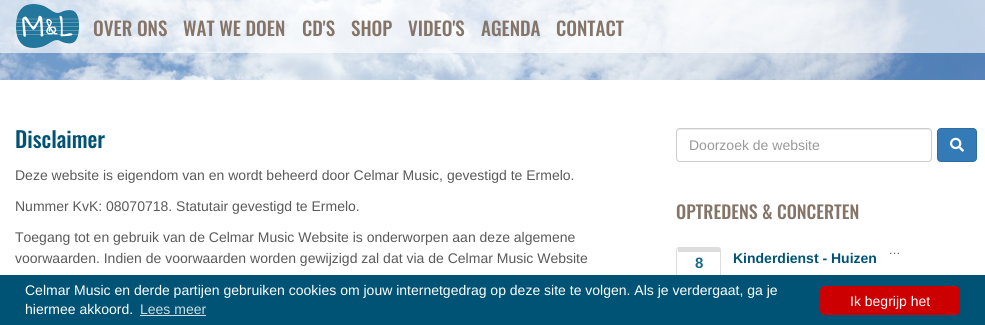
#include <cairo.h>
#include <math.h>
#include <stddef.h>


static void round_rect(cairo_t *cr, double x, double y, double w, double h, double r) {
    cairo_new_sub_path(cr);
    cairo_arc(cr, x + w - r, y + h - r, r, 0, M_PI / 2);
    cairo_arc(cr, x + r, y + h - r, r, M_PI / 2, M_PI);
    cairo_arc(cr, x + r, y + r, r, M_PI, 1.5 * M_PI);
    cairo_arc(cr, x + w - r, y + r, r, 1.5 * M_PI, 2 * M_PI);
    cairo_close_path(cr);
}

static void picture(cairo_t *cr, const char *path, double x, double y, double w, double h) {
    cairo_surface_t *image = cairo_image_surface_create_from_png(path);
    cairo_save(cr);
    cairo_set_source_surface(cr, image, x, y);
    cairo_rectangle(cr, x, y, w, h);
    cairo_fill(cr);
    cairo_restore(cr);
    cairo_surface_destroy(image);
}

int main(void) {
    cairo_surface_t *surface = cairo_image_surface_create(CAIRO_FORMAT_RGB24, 985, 325);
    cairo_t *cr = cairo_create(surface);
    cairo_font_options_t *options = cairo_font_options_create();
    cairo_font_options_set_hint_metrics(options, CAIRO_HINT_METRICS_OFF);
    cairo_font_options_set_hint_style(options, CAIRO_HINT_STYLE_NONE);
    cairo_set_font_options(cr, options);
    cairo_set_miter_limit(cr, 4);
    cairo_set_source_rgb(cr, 1, 1, 1);
    cairo_paint(cr);
    picture(cr, "img1.png", 0, 0, 985, 80);
    cairo_set_source_rgba(cr, 1, 1, 1, 0.65);
    cairo_rectangle(cr, 0, 0, 985, 53);
    cairo_fill(cr);
    picture(cr, "img2.png", 16, 4, 63, 44);
    cairo_select_font_face(cr, "Oswald Medium", CAIRO_FONT_SLANT_NORMAL, CAIRO_FONT_WEIGHT_NORMAL);
    cairo_set_font_size(cr, 19);
    cairo_set_source_rgb(cr, 0.522, 0.459, 0.412);
    cairo_move_to(cr, 93, 36);
    cairo_show_text(cr, "OVER ONS");
    cairo_move_to(cr, 183, 36);
    cairo_show_text(cr, "WAT WE DOEN");
    cairo_move_to(cr, 302, 36);
    cairo_show_text(cr, "CD'S");
    cairo_move_to(cr, 351, 36);
    cairo_show_text(cr, "SHOP");
    cairo_move_to(cr, 408, 36);
    cairo_show_text(cr, "VIDEO'S");
    cairo_move_to(cr, 481, 36);
    cairo_show_text(cr, "AGENDA");
    cairo_move_to(cr, 556, 36);
    cairo_show_text(cr, "CONTACT");
    cairo_set_font_size(cr, 22);
    cairo_set_source_rgb(cr, 0, 0.325, 0.455);
    cairo_move_to(cr, 15, 148);
    cairo_show_text(cr, "Disclaimer");
    cairo_select_font_face(cr, "Liberation Sans", CAIRO_FONT_SLANT_NORMAL, CAIRO_FONT_WEIGHT_NORMAL);
    cairo_set_font_size(cr, 14);
    cairo_set_source_rgb(cr, 0.353, 0.353, 0.353);
    cairo_move_to(cr, 15, 180);
    cairo_show_text(cr, "Deze website is eigendom van en wordt beheerd door Celmar Music, gevestigd te Ermelo.");
    cairo_move_to(cr, 15, 211);
    cairo_show_text(cr, "Nummer KvK: 08070718. Statutair gevestigd te Ermelo.");
    cairo_move_to(cr, 15, 242);
    cairo_show_text(cr, "Toegang tot en gebruik van de Celmar Music Website is onderworpen aan deze algemene");
    cairo_move_to(cr, 15, 263);
    cairo_show_text(cr, "voorwaarden. Indien de voorwaarden worden gewijzigd zal dat via de Celmar Music Website");
    cairo_set_source_rgb(cr, 0.925, 0.925, 0.925);
    cairo_new_path(cr);
    cairo_move_to(cr, 680, 130);
    cairo_line_to(cr, 929, 130);
    cairo_line_to(cr, 931, 131);
    cairo_line_to(cr, 931, 133);
    cairo_curve_to(cr, 931, 131, 930, 129, 928, 129);
    cairo_line_to(cr, 680, 129);
    cairo_curve_to(cr, 678, 129, 677, 131, 677, 133);
    cairo_curve_to(cr, 677, 131, 678, 130, 680, 130);
    cairo_close_path(cr);
    cairo_fill(cr);
    round_rect(cr, 676.5, 128.5, 255, 33, 3.5);
    cairo_set_source_rgb(cr, 0.8, 0.8, 0.8);
    cairo_set_line_width(cr, 1);
    cairo_stroke(cr);
    cairo_set_source_rgb(cr, 0.6, 0.6, 0.6);
    cairo_move_to(cr, 689, 150);
    cairo_show_text(cr, "Doorzoek de website");
    cairo_set_source_rgb(cr, 0.2, 0.478, 0.718);
    round_rect(cr, 937.5, 128.5, 39, 33, 3.5);
    cairo_fill_preserve(cr);
    cairo_set_source_rgb(cr, 0.18, 0.427, 0.643);
    cairo_stroke(cr);
    picture(cr, "img3.png", 950, 137, 14, 15);
    cairo_select_font_face(cr, "Oswald Medium", CAIRO_FONT_SLANT_NORMAL, CAIRO_FONT_WEIGHT_NORMAL);
    cairo_set_font_size(cr, 18);
    cairo_set_source_rgb(cr, 0.522, 0.459, 0.412);
    cairo_move_to(cr, 676, 219);
    cairo_show_text(cr, "OPTREDENS & CONCERTEN");
    cairo_select_font_face(cr, "Liberation Sans", CAIRO_FONT_SLANT_NORMAL, CAIRO_FONT_WEIGHT_BOLD);
    cairo_set_font_size(cr, 14);
    cairo_set_source_rgb(cr, 0, 0.325, 0.455);
    cairo_move_to(cr, 733, 263);
    cairo_show_text(cr, "Kinderdienst - Huizen");
    cairo_select_font_face(cr, "Liberation Sans", CAIRO_FONT_SLANT_ITALIC, CAIRO_FONT_WEIGHT_NORMAL);
    cairo_set_font_size(cr, 12);
    cairo_set_source_rgb(cr, 0.353, 0.353, 0.353);
    cairo_move_to(cr, 889, 254);
    cairo_show_text(cr, "…");
    round_rect(cr, 676.5, 247.5, 44, 38, 2.5);
    cairo_set_source_rgb(cr, 0.867, 0.867, 0.867);
    cairo_stroke(cr);
    cairo_rectangle(cr, 678, 248, 42, 4);
    cairo_fill(cr);
    cairo_select_font_face(cr, "Liberation Sans", CAIRO_FONT_SLANT_NORMAL, CAIRO_FONT_WEIGHT_BOLD);
    cairo_set_font_size(cr, 15);
    cairo_set_source_rgb(cr, 0.102, 0.42, 0.545);
    cairo_move_to(cr, 695, 268);
    cairo_show_text(cr, "8");
    cairo_set_source_rgb(cr, 0, 0.325, 0.455);
    cairo_rectangle(cr, 0, 275, 985, 50);
    cairo_fill(cr);
    cairo_select_font_face(cr, "Liberation Sans", CAIRO_FONT_SLANT_NORMAL, CAIRO_FONT_WEIGHT_NORMAL);
    cairo_set_font_size(cr, 14);
    cairo_set_source_rgb(cr, 1, 1, 1);
    cairo_move_to(cr, 25, 295);
    cairo_show_text(cr, "Celmar Music en derde partijen gebruiken cookies om jouw internetgedrag op deze site te volgen. Als je verdergaat, ga je");
    cairo_move_to(cr, 25, 314);
    cairo_show_text(cr, "hiermee akkoord.");
    cairo_set_source_rgb(cr, 0.8, 0.867, 0.89);
    cairo_move_to(cr, 140, 314);
    cairo_show_text(cr, "Lees meer");
    cairo_rectangle(cr, 140, 315, 66, 1);
    cairo_fill(cr);
    cairo_set_source_rgb(cr, 0.8, 0, 0);
    round_rect(cr, 820, 286, 140, 29, 5);
    cairo_fill(cr);
    cairo_set_source_rgb(cr, 1, 1, 1);
    cairo_move_to(cr, 850, 306);
    cairo_show_text(cr, "Ik begrijp het");
    cairo_surface_write_to_png(surface, "page.png");
    cairo_font_options_destroy(options);
    cairo_destroy(cr);
    cairo_surface_destroy(surface);
    return 0;
}
